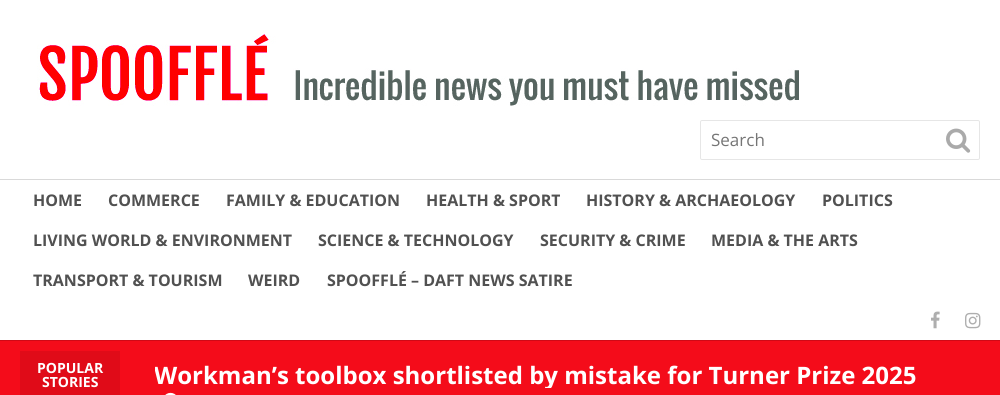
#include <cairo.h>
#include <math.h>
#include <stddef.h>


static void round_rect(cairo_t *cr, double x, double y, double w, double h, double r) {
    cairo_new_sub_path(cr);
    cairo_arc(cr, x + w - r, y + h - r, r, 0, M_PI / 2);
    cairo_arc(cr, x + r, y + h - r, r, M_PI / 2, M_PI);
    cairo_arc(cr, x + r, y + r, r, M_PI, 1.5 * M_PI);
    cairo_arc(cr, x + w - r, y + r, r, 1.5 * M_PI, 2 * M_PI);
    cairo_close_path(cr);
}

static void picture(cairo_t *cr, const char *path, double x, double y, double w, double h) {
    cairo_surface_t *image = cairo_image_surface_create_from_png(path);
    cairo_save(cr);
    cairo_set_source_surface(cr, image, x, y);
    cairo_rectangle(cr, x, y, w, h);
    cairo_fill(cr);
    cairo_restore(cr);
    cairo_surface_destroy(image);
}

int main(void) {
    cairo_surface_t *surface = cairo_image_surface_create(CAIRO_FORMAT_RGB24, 1000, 395);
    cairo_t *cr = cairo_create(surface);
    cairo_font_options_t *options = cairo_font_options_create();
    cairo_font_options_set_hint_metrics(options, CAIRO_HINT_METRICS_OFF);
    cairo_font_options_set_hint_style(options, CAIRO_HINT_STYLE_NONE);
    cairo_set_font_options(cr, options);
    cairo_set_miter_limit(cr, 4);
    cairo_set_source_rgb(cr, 0.957, 0.047, 0.102);
    cairo_paint(cr);
    cairo_set_source_rgb(cr, 1, 1, 1);
    cairo_rectangle(cr, 0, 0, 1000, 179);
    cairo_fill(cr);
    picture(cr, "img1.png", 37, 30, 762, 76);
    round_rect(cr, 700.5, 120.5, 279, 39, 1.5);
    cairo_set_source_rgb(cr, 0.902, 0.902, 0.902);
    cairo_set_line_width(cr, 1);
    cairo_stroke(cr);
    cairo_select_font_face(cr, "Open Sans", CAIRO_FONT_SLANT_NORMAL, CAIRO_FONT_WEIGHT_NORMAL);
    cairo_set_font_size(cr, 17);
    cairo_set_source_rgb(cr, 0.459, 0.459, 0.459);
    cairo_move_to(cr, 711, 146);
    cairo_show_text(cr, "Search");
    picture(cr, "img2.png", 946, 128, 25, 25);
    cairo_set_source_rgb(cr, 0.812, 0.039, 0.086);
    cairo_rectangle(cr, 0, 340, 1000, 1);
    cairo_fill(cr);
    cairo_set_source_rgb(cr, 1, 1, 1);
    cairo_rectangle(cr, 0, 180, 1000, 160);
    cairo_fill(cr);
    cairo_set_source_rgb(cr, 0.851, 0.851, 0.851);
    cairo_rectangle(cr, 0, 179, 1000, 1);
    cairo_fill(cr);
    cairo_select_font_face(cr, "Open Sans", CAIRO_FONT_SLANT_NORMAL, CAIRO_FONT_WEIGHT_BOLD);
    cairo_set_font_size(cr, 16);
    cairo_set_source_rgb(cr, 0.318, 0.318, 0.318);
    cairo_move_to(cr, 33, 206);
    cairo_show_text(cr, "HOME");
    cairo_move_to(cr, 108, 206);
    cairo_show_text(cr, "COMMERCE");
    cairo_move_to(cr, 226, 206);
    cairo_show_text(cr, "FAMILY & EDUCATION");
    cairo_move_to(cr, 426, 206);
    cairo_show_text(cr, "HEALTH & SPORT");
    cairo_move_to(cr, 586, 206);
    cairo_show_text(cr, "HISTORY & ARCHAEOLOGY");
    cairo_move_to(cr, 822, 206);
    cairo_show_text(cr, "POLITICS");
    cairo_move_to(cr, 33, 246);
    cairo_show_text(cr, "LIVING WORLD & ENVIRONMENT");
    cairo_move_to(cr, 318, 246);
    cairo_show_text(cr, "SCIENCE & TECHNOLOGY");
    cairo_move_to(cr, 540, 246);
    cairo_show_text(cr, "SECURITY & CRIME");
    cairo_move_to(cr, 711, 246);
    cairo_show_text(cr, "MEDIA & THE ARTS");
    cairo_move_to(cr, 33, 286);
    cairo_show_text(cr, "TRANSPORT & TOURISM");
    cairo_move_to(cr, 248, 286);
    cairo_show_text(cr, "WEIRD");
    cairo_move_to(cr, 327, 286);
    cairo_show_text(cr, "SPOOFFLÉ – DAFT NEWS SATIRE");
    picture(cr, "img3.png", 931, 311, 9, 18);
    picture(cr, "img4.png", 965, 312, 16, 17);
    cairo_set_source_rgb(cr, 0.878, 0.043, 0.094);
    cairo_rectangle(cr, 20, 351, 100, 44);
    cairo_fill(cr);
    cairo_set_font_size(cr, 14);
    cairo_set_source_rgb(cr, 1, 1, 1);
    cairo_move_to(cr, 37, 373);
    cairo_show_text(cr, "POPULAR");
    cairo_move_to(cr, 42, 387);
    cairo_show_text(cr, "STORIES");
    cairo_save(cr);
    cairo_rectangle(cr, 155, 362, 762, 26);
    cairo_clip(cr);
    cairo_set_font_size(cr, 24);
    cairo_move_to(cr, 154, 384);
    cairo_show_text(cr, "Workman’s toolbox shortlisted by mistake for Turner Prize 2025");
    cairo_restore(cr);
    picture(cr, "img5.png", 165, 392, 11, 3);
    cairo_surface_write_to_png(surface, "page.png");
    cairo_font_options_destroy(options);
    cairo_destroy(cr);
    cairo_surface_destroy(surface);
    return 0;
}
